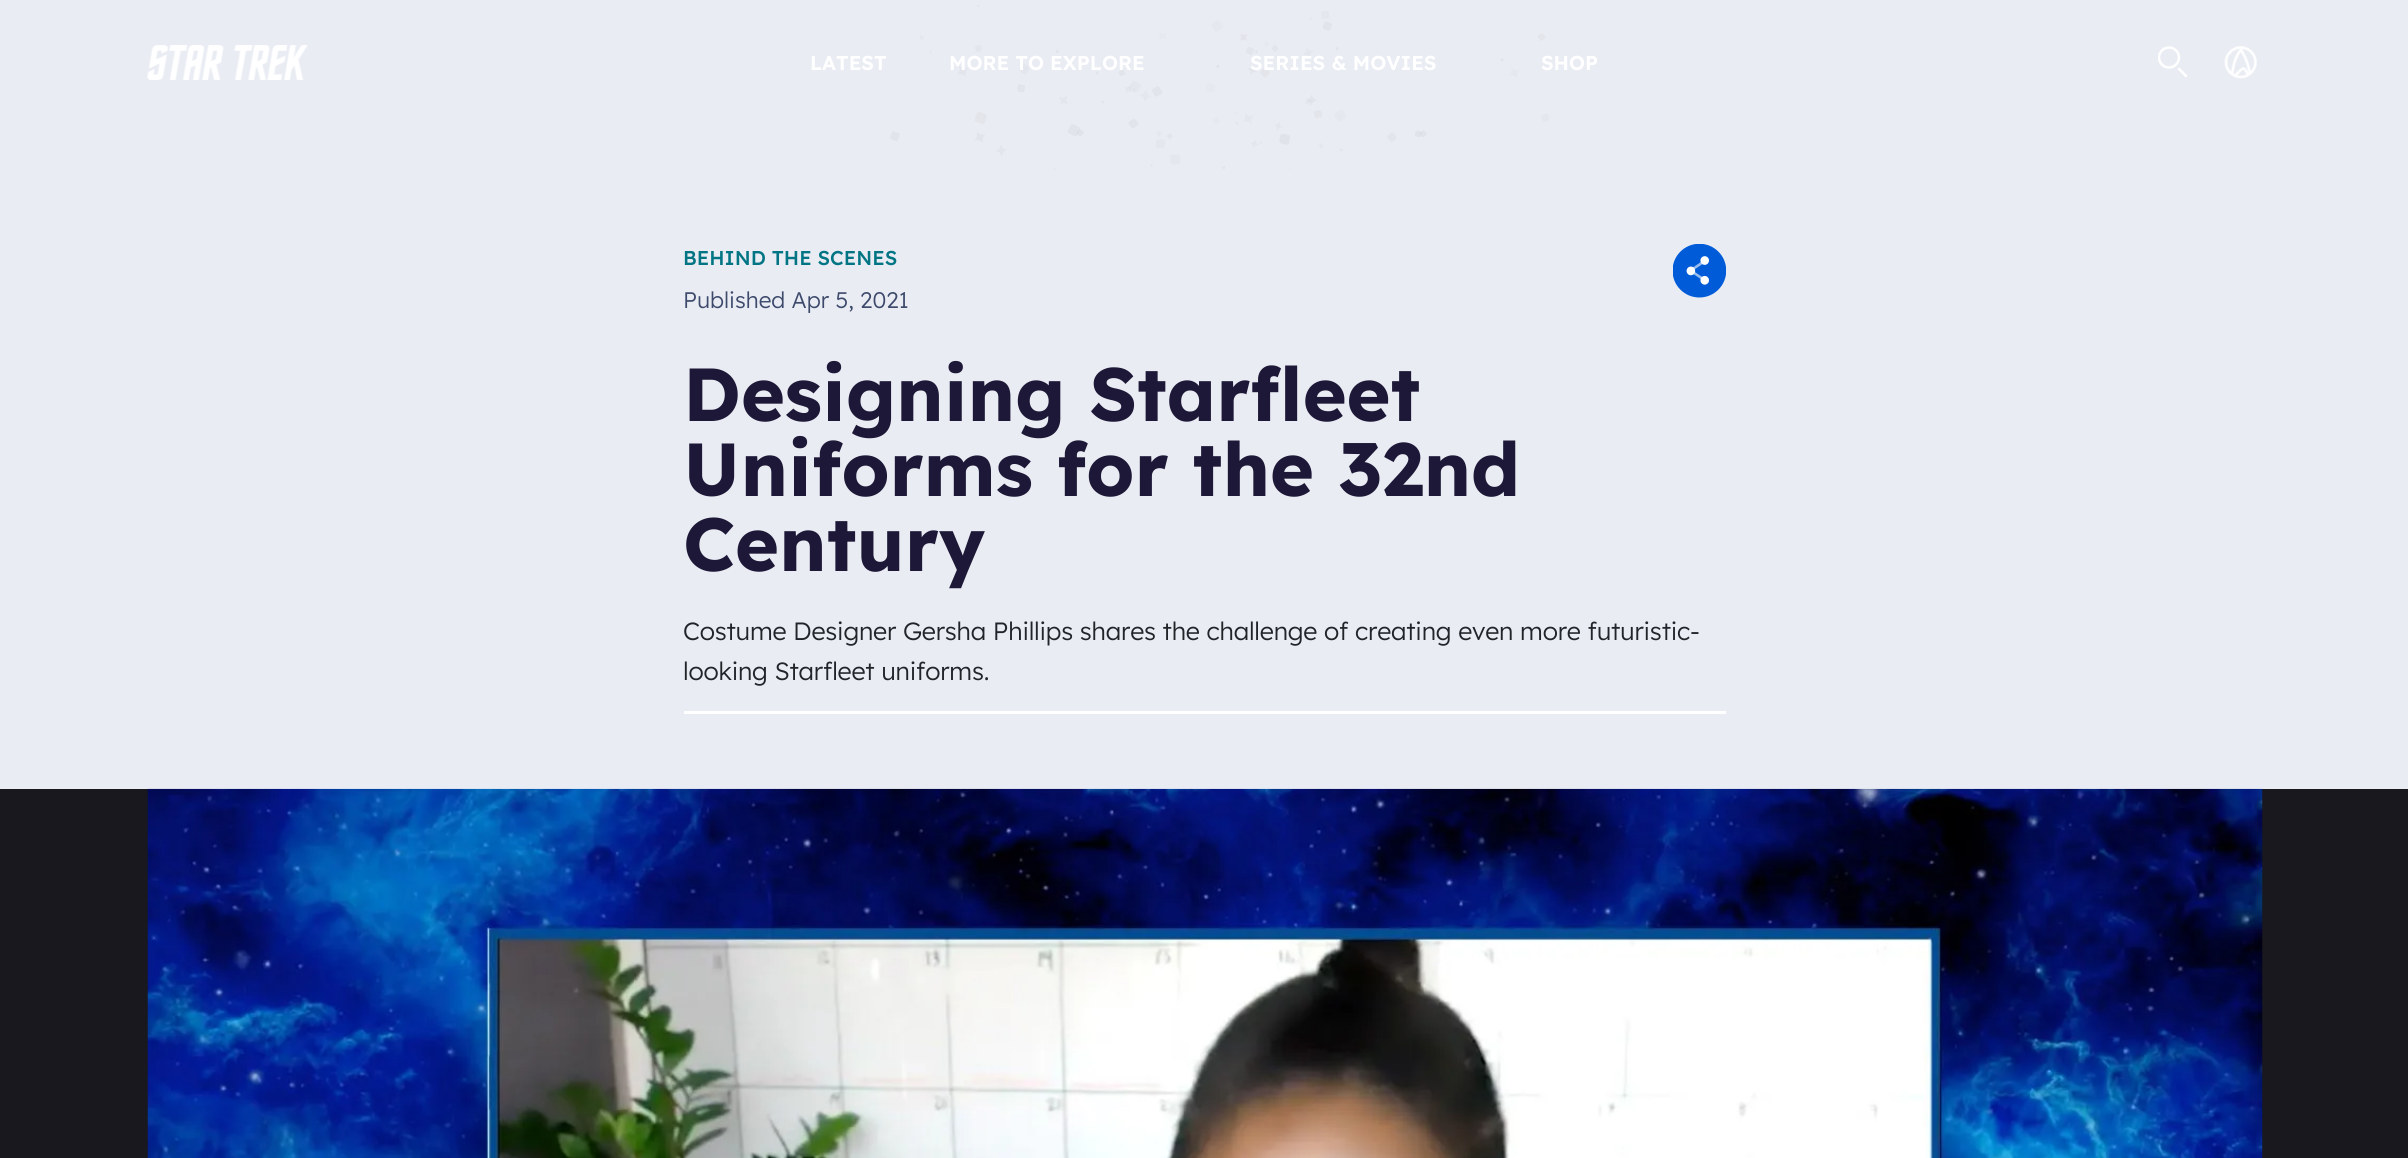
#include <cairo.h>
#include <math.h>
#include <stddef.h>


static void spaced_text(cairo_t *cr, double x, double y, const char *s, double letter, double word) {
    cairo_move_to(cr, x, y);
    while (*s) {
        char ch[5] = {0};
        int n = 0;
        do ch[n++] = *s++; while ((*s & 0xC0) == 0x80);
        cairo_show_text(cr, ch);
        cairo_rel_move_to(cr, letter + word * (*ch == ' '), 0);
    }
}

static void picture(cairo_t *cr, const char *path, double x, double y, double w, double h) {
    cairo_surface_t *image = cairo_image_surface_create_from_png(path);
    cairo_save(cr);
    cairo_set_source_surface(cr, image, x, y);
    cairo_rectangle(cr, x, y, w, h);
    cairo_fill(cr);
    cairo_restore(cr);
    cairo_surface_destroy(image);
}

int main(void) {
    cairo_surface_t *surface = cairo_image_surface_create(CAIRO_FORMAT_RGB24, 2408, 1158);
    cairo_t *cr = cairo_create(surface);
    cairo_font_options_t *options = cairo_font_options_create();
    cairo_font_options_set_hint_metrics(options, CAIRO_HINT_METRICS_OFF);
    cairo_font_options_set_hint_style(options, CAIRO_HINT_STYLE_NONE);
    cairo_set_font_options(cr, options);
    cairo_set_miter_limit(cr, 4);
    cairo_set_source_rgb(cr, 0.914, 0.925, 0.953);
    cairo_paint(cr);
    picture(cr, "img1.png", 890, 5, 659, 165);
    picture(cr, "img2.png", 147, 45, 161, 35);
    cairo_select_font_face(cr, "Lexend SemiBold", CAIRO_FONT_SLANT_NORMAL, CAIRO_FONT_WEIGHT_NORMAL);
    cairo_set_font_size(cr, 20);
    cairo_set_source_rgb(cr, 1, 1, 1);
    cairo_move_to(cr, 810, 70);
    cairo_show_text(cr, "LATEST");
    cairo_move_to(cr, 949, 70);
    cairo_show_text(cr, "MORE TO EXPLORE");
    cairo_move_to(cr, 1250, 70);
    cairo_show_text(cr, "SERIES & MOVIES");
    cairo_move_to(cr, 1541, 70);
    cairo_show_text(cr, "SHOP");
    cairo_new_path(cr);
    cairo_move_to(cr, 2186, 76);
    cairo_line_to(cr, 2179, 69);
    cairo_set_line_width(cr, 2.5);
    cairo_set_line_cap(cr, CAIRO_LINE_CAP_ROUND);
    cairo_stroke(cr);
    cairo_save(cr);
    cairo_rectangle(cr, 2158, 46, 31, 33);
    cairo_clip(cr);
    cairo_arc(cr, 2169, 57.5, 10, 0, 2 * M_PI);
    cairo_set_line_cap(cr, CAIRO_LINE_CAP_BUTT);
    cairo_stroke(cr);
    cairo_restore(cr);
    picture(cr, "img3.png", 2224, 46, 33, 33);
    cairo_select_font_face(cr, "Lexend Medium", CAIRO_FONT_SLANT_NORMAL, CAIRO_FONT_WEIGHT_NORMAL);
    cairo_set_source_rgb(cr, 0.004, 0.459, 0.518);
    cairo_move_to(cr, 683, 265);
    cairo_show_text(cr, "BEHIND THE SCENES");
    cairo_select_font_face(cr, "Lexend Light", CAIRO_FONT_SLANT_NORMAL, CAIRO_FONT_WEIGHT_NORMAL);
    cairo_set_font_size(cr, 22.5);
    cairo_set_source_rgb(cr, 0.239, 0.29, 0.424);
    cairo_move_to(cr, 683, 308);
    cairo_show_text(cr, "Published Apr 5, 2021");
    picture(cr, "img4.png", 1673, 244, 53, 54);
    cairo_select_font_face(cr, "Lexend", CAIRO_FONT_SLANT_NORMAL, CAIRO_FONT_WEIGHT_BOLD);
    cairo_set_font_size(cr, 75);
    cairo_set_source_rgb(cr, 0.114, 0.094, 0.216);
    cairo_move_to(cr, 683, 421);
    cairo_show_text(cr, "Designing Starfleet");
    cairo_move_to(cr, 683, 496);
    cairo_show_text(cr, "Uniforms for the 32nd");
    cairo_move_to(cr, 683, 571);
    cairo_show_text(cr, "Century");
    cairo_select_font_face(cr, "Lexend Light", CAIRO_FONT_SLANT_NORMAL, CAIRO_FONT_WEIGHT_NORMAL);
    cairo_set_font_size(cr, 25);
    cairo_set_source_rgb(cr, 0.129, 0.145, 0.161);
    spaced_text(cr, 683, 640, "Costume Designer Gersha Phillips shares the challenge of creating even more futuristic-", -0.2, 0);
    spaced_text(cr, 683, 680, "looking Starfleet uniforms.", -0.2, 0);
    cairo_set_source_rgb(cr, 1, 1, 1);
    cairo_rectangle(cr, 684, 711, 1042, 3);
    cairo_fill(cr);
    cairo_set_source_rgb(cr, 0.098, 0.094, 0.122);
    cairo_rectangle(cr, 0, 789, 2408, 369);
    cairo_fill(cr);
    picture(cr, "img5.png", 147, 788, 2116, 370);
    cairo_surface_write_to_png(surface, "page.png");
    cairo_font_options_destroy(options);
    cairo_destroy(cr);
    cairo_surface_destroy(surface);
    return 0;
}
